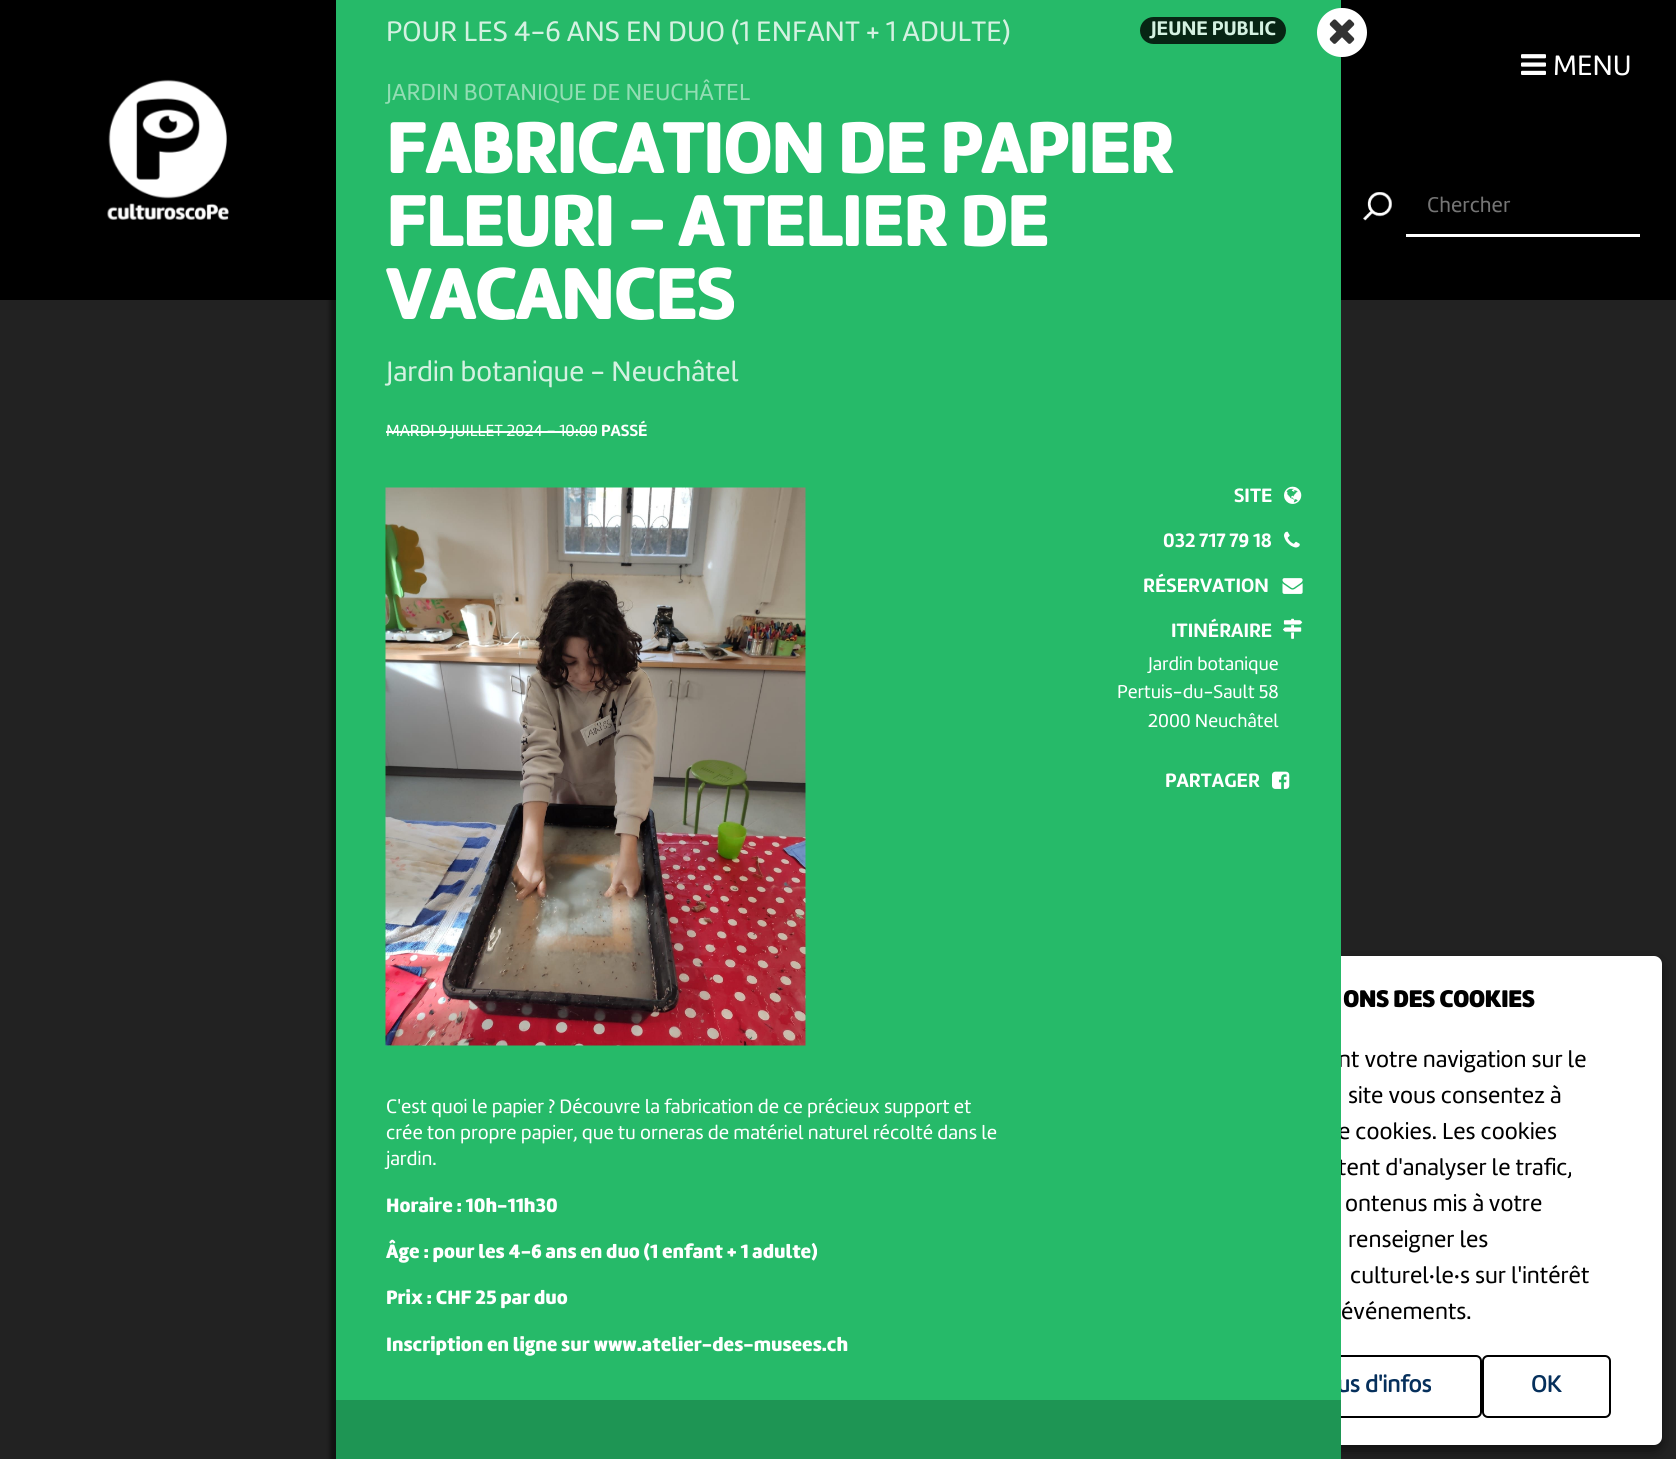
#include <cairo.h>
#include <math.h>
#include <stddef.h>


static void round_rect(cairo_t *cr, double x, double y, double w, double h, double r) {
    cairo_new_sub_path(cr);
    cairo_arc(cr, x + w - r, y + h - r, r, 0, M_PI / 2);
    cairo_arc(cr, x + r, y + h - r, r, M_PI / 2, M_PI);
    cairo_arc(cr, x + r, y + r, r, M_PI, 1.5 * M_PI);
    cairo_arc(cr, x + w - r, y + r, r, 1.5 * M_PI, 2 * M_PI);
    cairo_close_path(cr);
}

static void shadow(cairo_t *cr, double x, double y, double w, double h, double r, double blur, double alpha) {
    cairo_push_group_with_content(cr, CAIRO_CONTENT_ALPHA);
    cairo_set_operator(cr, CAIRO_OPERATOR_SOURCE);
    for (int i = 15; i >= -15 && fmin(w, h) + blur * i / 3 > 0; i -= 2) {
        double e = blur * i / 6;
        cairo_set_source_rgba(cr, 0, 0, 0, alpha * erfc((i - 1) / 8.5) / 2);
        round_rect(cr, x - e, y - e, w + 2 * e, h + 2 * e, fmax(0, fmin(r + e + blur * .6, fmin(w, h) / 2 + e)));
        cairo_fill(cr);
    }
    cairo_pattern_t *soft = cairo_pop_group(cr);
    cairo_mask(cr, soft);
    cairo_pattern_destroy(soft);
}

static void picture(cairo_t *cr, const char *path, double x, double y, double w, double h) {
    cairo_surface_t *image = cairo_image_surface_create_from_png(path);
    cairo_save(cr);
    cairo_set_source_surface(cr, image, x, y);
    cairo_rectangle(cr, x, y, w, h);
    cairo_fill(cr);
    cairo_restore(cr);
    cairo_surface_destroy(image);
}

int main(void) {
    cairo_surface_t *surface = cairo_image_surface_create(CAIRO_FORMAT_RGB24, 1676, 1459);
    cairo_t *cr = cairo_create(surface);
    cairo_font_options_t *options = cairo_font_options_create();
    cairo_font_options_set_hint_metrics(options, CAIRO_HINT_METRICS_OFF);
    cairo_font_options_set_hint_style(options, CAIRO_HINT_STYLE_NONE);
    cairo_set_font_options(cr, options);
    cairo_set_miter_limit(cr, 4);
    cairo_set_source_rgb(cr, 0.133, 0.133, 0.133);
    cairo_paint(cr);
    cairo_set_source_rgb(cr, 0, 0, 0);
    cairo_rectangle(cr, 0, 0, 1676, 300);
    cairo_fill(cr);
    picture(cr, "img1.png", 107, 79, 122, 141);
    cairo_set_source_rgb(cr, 0, 0, 0);
    shadow(cr, 1160, 962, 502, 489, 8, 6, 0.5);
    cairo_set_source_rgb(cr, 1, 1, 1);
    round_rect(cr, 1161.5, 957.5, 499, 486, 6.5);
    cairo_fill_preserve(cr);
    cairo_set_line_width(cr, 3);
    cairo_stroke(cr);
    round_rect(cr, 1269, 1356, 212, 61, 5);
    cairo_set_source_rgb(cr, 0, 0, 0);
    cairo_set_line_width(cr, 2);
    cairo_stroke(cr);
    cairo_set_source_rgb(cr, 0, 0, 0);
    shadow(cr, 330, 0, 1005, 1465, 0, 2, 0.5);
    cairo_select_font_face(cr, "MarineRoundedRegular", CAIRO_FONT_SLANT_NORMAL, CAIRO_FONT_WEIGHT_NORMAL);
    cairo_set_font_size(cr, 24);
    cairo_set_source_rgb(cr, 0, 0, 0);
    cairo_move_to(cr, 1338, 1067);
    cairo_show_text(cr, "nt votre navigation sur le");
    cairo_move_to(cr, 1338, 1139);
    cairo_show_text(cr, "e cookies. Les cookies");
    cairo_move_to(cr, 1338, 1175);
    cairo_show_text(cr, "tent d'analyser le trafic,");
    cairo_select_font_face(cr, "MarineRoundedRegular", CAIRO_FONT_SLANT_NORMAL, CAIRO_FONT_WEIGHT_BOLD);
    cairo_set_source_rgb(cr, 0.027, 0.188, 0.361);
    cairo_move_to(cr, 1337, 1392);
    cairo_show_text(cr, "us d'infos");
    cairo_set_source_rgb(cr, 0.149, 0.729, 0.412);
    cairo_rectangle(cr, 336, 0, 1005, 1400);
    cairo_fill(cr);
    cairo_select_font_face(cr, "MarineRoundedRegular", CAIRO_FONT_SLANT_NORMAL, CAIRO_FONT_WEIGHT_NORMAL);
    cairo_set_font_size(cr, 29.2);
    cairo_set_source_rgb(cr, 0.831, 0.945, 0.882);
    cairo_move_to(cr, 386, 41);
    cairo_show_text(cr, "POUR LES 4-6 ANS EN DUO (1 ENFANT + 1 ADULTE)");
    cairo_set_source_rgb(cr, 0.031, 0.145, 0.082);
    round_rect(cr, 1140, 17, 146, 27, 13.5);
    cairo_fill(cr);
    cairo_select_font_face(cr, "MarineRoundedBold", CAIRO_FONT_SLANT_NORMAL, CAIRO_FONT_WEIGHT_NORMAL);
    cairo_set_font_size(cr, 20.5);
    cairo_set_source_rgb(cr, 0.831, 0.945, 0.882);
    cairo_move_to(cr, 1151, 35);
    cairo_show_text(cr, "JEUNE PUBLIC");
    cairo_select_font_face(cr, "MarineRoundedRegular", CAIRO_FONT_SLANT_NORMAL, CAIRO_FONT_WEIGHT_NORMAL);
    cairo_set_font_size(cr, 24);
    cairo_set_source_rgb(cr, 0.576, 0.867, 0.706);
    cairo_move_to(cr, 386, 100);
    cairo_show_text(cr, "JARDIN BOTANIQUE DE NEUCHÂTEL");
    cairo_select_font_face(cr, "MarineRoundedBold", CAIRO_FONT_SLANT_NORMAL, CAIRO_FONT_WEIGHT_BOLD);
    cairo_set_font_size(cr, 73);
    cairo_set_source_rgb(cr, 1, 1, 1);
    cairo_move_to(cr, 386, 173);
    cairo_show_text(cr, "FABRICATION DE PAPIER");
    cairo_move_to(cr, 386, 246);
    cairo_show_text(cr, "FLEURI - ATELIER DE");
    cairo_move_to(cr, 386, 319);
    cairo_show_text(cr, "VACANCES");
    cairo_select_font_face(cr, "MarineRoundedRegular", CAIRO_FONT_SLANT_NORMAL, CAIRO_FONT_WEIGHT_NORMAL);
    cairo_set_font_size(cr, 29.2);
    cairo_set_source_rgb(cr, 0.831, 0.945, 0.882);
    cairo_move_to(cr, 386, 381);
    cairo_show_text(cr, "Jardin botanique - Neuchâtel");
    cairo_set_font_size(cr, 16.75);
    cairo_set_source_rgb(cr, 1, 1, 1);
    cairo_move_to(cr, 386, 436);
    cairo_show_text(cr, "MARDI 9 JUILLET 2024 – 10:00");
    cairo_rectangle(cr, 386, 431, 211, 2);
    cairo_fill(cr);
    cairo_select_font_face(cr, "MarineRoundedBold", CAIRO_FONT_SLANT_NORMAL, CAIRO_FONT_WEIGHT_NORMAL);
    cairo_move_to(cr, 601, 436);
    cairo_show_text(cr, "PASSÉ");
    picture(cr, "img2.png", 385, 487, 421, 559);
    cairo_set_font_size(cr, 20.1);
    cairo_move_to(cr, 1234, 502);
    cairo_show_text(cr, "SITE");
    picture(cr, "img3.png", 1284, 486, 18, 18);
    cairo_move_to(cr, 1163, 547);
    cairo_show_text(cr, "032 717 79 18");
    picture(cr, "img4.png", 1284, 531, 16, 17);
    cairo_move_to(cr, 1143, 592);
    cairo_show_text(cr, "RÉSERVATION");
    picture(cr, "img5.png", 1282, 578, 21, 16);
    cairo_move_to(cr, 1171, 637);
    cairo_show_text(cr, "ITINÉRAIRE");
    picture(cr, "img6.png", 1283, 618, 20, 21);
    cairo_select_font_face(cr, "MarineRoundedRegular", CAIRO_FONT_SLANT_NORMAL, CAIRO_FONT_WEIGHT_NORMAL);
    cairo_set_font_size(cr, 19.25);
    cairo_move_to(cr, 1148, 670);
    cairo_show_text(cr, "Jardin botanique");
    cairo_move_to(cr, 1117, 698);
    cairo_show_text(cr, "Pertuis-du-Sault 58");
    cairo_move_to(cr, 1148, 727);
    cairo_show_text(cr, "2000 Neuchâtel");
    cairo_select_font_face(cr, "MarineRoundedBold", CAIRO_FONT_SLANT_NORMAL, CAIRO_FONT_WEIGHT_NORMAL);
    cairo_set_font_size(cr, 20.1);
    cairo_move_to(cr, 1165, 787);
    cairo_show_text(cr, "PARTAGER");
    picture(cr, "img7.png", 1272, 771, 18, 18);
    cairo_select_font_face(cr, "MarineRoundedRegular", CAIRO_FONT_SLANT_NORMAL, CAIRO_FONT_WEIGHT_NORMAL);
    cairo_move_to(cr, 386, 1113);
    cairo_show_text(cr, "C'est quoi le papier ? Découvre la fabrication de ce précieux support et");
    cairo_move_to(cr, 386, 1139);
    cairo_show_text(cr, "crée ton propre papier, que tu orneras de matériel naturel récolté dans le");
    cairo_move_to(cr, 386, 1165);
    cairo_show_text(cr, "jardin.");
    cairo_select_font_face(cr, "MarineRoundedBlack", CAIRO_FONT_SLANT_NORMAL, CAIRO_FONT_WEIGHT_NORMAL);
    cairo_move_to(cr, 386, 1212);
    cairo_show_text(cr, "Horaire : 10h-11h30");
    cairo_move_to(cr, 386, 1258);
    cairo_show_text(cr, "Âge : pour les 4-6 ans en duo (1 enfant + 1 adulte)");
    cairo_move_to(cr, 386, 1304);
    cairo_show_text(cr, "Prix : CHF 25 par duo");
    cairo_move_to(cr, 386, 1351);
    cairo_show_text(cr, "Inscription en ligne sur www.atelier-des-musees.ch");
    cairo_set_source_rgb(cr, 0.118, 0.584, 0.329);
    cairo_rectangle(cr, 336, 1400, 1005, 59);
    cairo_fill(cr);
    cairo_set_source_rgb(cr, 1, 1, 1);
    round_rect(cr, 1317, 8, 50, 49, 24.5);
    cairo_fill(cr);
    picture(cr, "img8.png", 1329, 19, 26, 25);
    picture(cr, "img9.png", 1363, 192, 29, 29);
    cairo_rectangle(cr, 1406, 234, 234, 3);
    cairo_fill(cr);
    cairo_select_font_face(cr, "MarineRoundedRegular", CAIRO_FONT_SLANT_NORMAL, CAIRO_FONT_WEIGHT_NORMAL);
    cairo_set_font_size(cr, 22);
    cairo_set_source_rgb(cr, 0.459, 0.459, 0.459);
    cairo_move_to(cr, 1427, 212);
    cairo_show_text(cr, "Chercher");
    picture(cr, "img10.png", 1521, 54, 25, 21);
    cairo_set_font_size(cr, 29.2);
    cairo_set_source_rgb(cr, 1, 1, 1);
    cairo_move_to(cr, 1553, 75);
    cairo_show_text(cr, "MENU");
    cairo_select_font_face(cr, "MarineRoundedBlack", CAIRO_FONT_SLANT_NORMAL, CAIRO_FONT_WEIGHT_BOLD);
    cairo_set_font_size(cr, 24);
    cairo_set_source_rgb(cr, 0, 0, 0);
    cairo_move_to(cr, 1343, 1007);
    cairo_show_text(cr, "ONS DES COOKIES");
    cairo_select_font_face(cr, "MarineRoundedRegular", CAIRO_FONT_SLANT_NORMAL, CAIRO_FONT_WEIGHT_NORMAL);
    cairo_move_to(cr, 1348, 1103);
    cairo_show_text(cr, "site vous consentez à");
    cairo_move_to(cr, 1345, 1211);
    cairo_show_text(cr, "ontenus mis à votre");
    cairo_move_to(cr, 1348, 1247);
    cairo_show_text(cr, "renseigner les");
    cairo_move_to(cr, 1350, 1283);
    cairo_show_text(cr, "culturel·le·s sur l'intérêt");
    cairo_move_to(cr, 1341, 1319);
    cairo_show_text(cr, "événements.");
    round_rect(cr, 1483, 1356, 127, 61, 5);
    cairo_stroke(cr);
    cairo_select_font_face(cr, "MarineRoundedRegular", CAIRO_FONT_SLANT_NORMAL, CAIRO_FONT_WEIGHT_BOLD);
    cairo_set_source_rgb(cr, 0.027, 0.188, 0.361);
    cairo_move_to(cr, 1531, 1392);
    cairo_show_text(cr, "OK");
    cairo_surface_write_to_png(surface, "page.png");
    cairo_font_options_destroy(options);
    cairo_destroy(cr);
    cairo_surface_destroy(surface);
    return 0;
}
